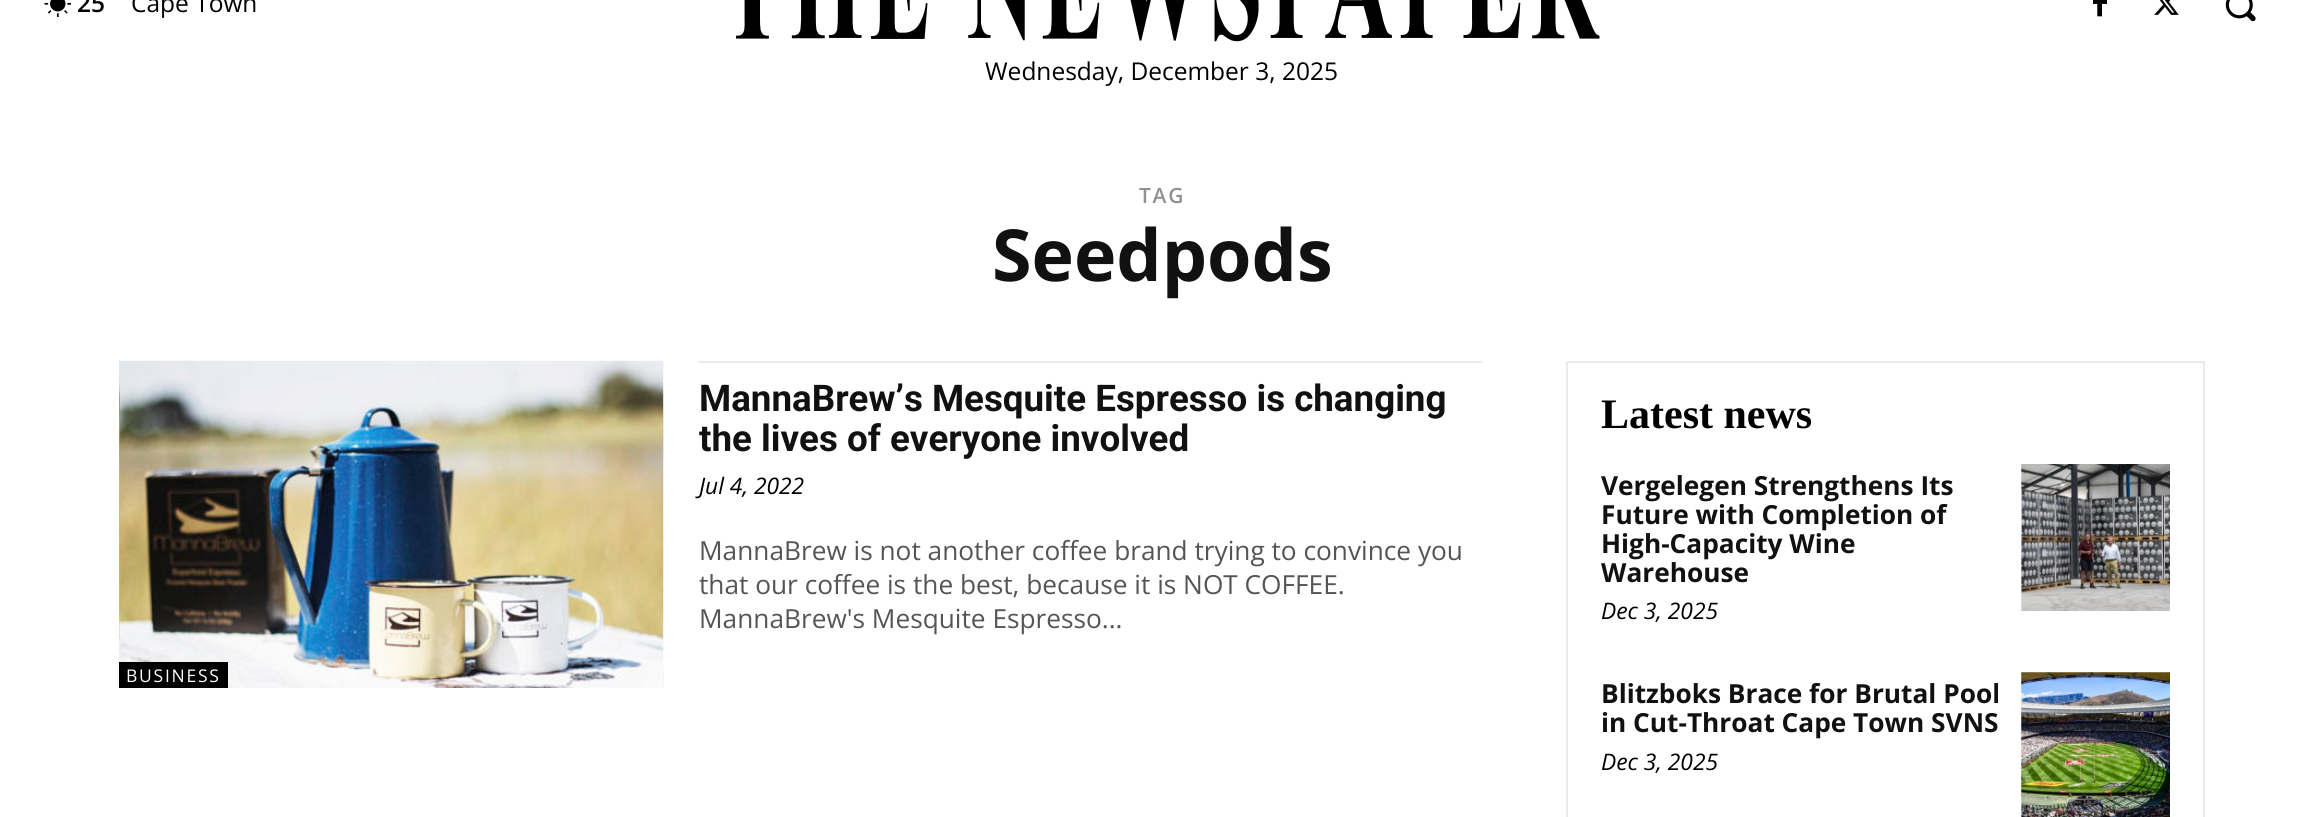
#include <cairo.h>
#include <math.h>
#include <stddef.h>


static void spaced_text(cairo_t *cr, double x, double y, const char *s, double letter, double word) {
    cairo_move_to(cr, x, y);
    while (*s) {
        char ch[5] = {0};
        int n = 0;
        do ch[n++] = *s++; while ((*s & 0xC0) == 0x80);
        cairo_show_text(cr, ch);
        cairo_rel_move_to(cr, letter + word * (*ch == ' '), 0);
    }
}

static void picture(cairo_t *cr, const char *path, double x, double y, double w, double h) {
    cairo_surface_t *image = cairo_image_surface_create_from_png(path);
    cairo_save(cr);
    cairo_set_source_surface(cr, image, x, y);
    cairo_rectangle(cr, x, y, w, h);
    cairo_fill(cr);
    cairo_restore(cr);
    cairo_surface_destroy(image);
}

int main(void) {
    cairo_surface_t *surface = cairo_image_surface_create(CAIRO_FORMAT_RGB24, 2323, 817);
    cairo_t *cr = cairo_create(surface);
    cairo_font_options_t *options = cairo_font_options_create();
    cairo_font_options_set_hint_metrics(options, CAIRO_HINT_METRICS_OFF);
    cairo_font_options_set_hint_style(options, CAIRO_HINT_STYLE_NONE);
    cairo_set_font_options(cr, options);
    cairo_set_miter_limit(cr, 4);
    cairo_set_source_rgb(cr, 1, 1, 1);
    cairo_paint(cr);
    picture(cr, "img1.png", 44, 0, 27, 17);
    cairo_select_font_face(cr, "Open Sans SemiBold", CAIRO_FONT_SLANT_NORMAL, CAIRO_FONT_WEIGHT_NORMAL);
    cairo_set_font_size(cr, 24.5);
    cairo_set_source_rgb(cr, 0, 0, 0);
    cairo_move_to(cr, 77, 12);
    cairo_show_text(cr, "25");
    cairo_select_font_face(cr, "Open Sans", CAIRO_FONT_SLANT_NORMAL, CAIRO_FONT_WEIGHT_NORMAL);
    cairo_move_to(cr, 131, 12);
    cairo_show_text(cr, "Cape Town");
    picture(cr, "img2.png", 2093, 0, 14, 17);
    picture(cr, "img3.png", 2154, 0, 25, 15);
    picture(cr, "img4.png", 2225, 0, 31, 22);
    picture(cr, "img5.png", 736, 0, 864, 42);
    cairo_move_to(cr, 985, 80);
    cairo_show_text(cr, "Wednesday, December 3, 2025");
    cairo_select_font_face(cr, "Open Sans SemiBold", CAIRO_FONT_SLANT_NORMAL, CAIRO_FONT_WEIGHT_NORMAL);
    cairo_set_font_size(cr, 21);
    cairo_set_source_rgb(cr, 0.569, 0.569, 0.569);
    spaced_text(cr, 1139, 203, "TAG", 1.75, 0);
    cairo_select_font_face(cr, "Open Sans", CAIRO_FONT_SLANT_NORMAL, CAIRO_FONT_WEIGHT_BOLD);
    cairo_set_font_size(cr, 71.75);
    cairo_set_source_rgb(cr, 0.067, 0.067, 0.067);
    cairo_move_to(cr, 992, 281);
    cairo_show_text(cr, "Seedpods");
    cairo_set_source_rgb(cr, 0.918, 0.918, 0.918);
    cairo_rectangle(cr, 698, 361, 784, 2);
    cairo_fill(cr);
    cairo_select_font_face(cr, "Roboto", CAIRO_FONT_SLANT_NORMAL, CAIRO_FONT_WEIGHT_BOLD);
    cairo_set_font_size(cr, 36.75);
    cairo_set_source_rgb(cr, 0.067, 0.067, 0.067);
    cairo_move_to(cr, 699, 411);
    cairo_show_text(cr, "MannaBrew’s Mesquite Espresso is changing");
    cairo_move_to(cr, 699, 451);
    cairo_show_text(cr, "the lives of everyone involved");
    cairo_select_font_face(cr, "Open Sans", CAIRO_FONT_SLANT_ITALIC, CAIRO_FONT_WEIGHT_NORMAL);
    cairo_set_font_size(cr, 22.75);
    cairo_set_source_rgb(cr, 0, 0, 0);
    cairo_move_to(cr, 699, 494);
    cairo_show_text(cr, "Jul 4, 2022");
    cairo_select_font_face(cr, "Open Sans", CAIRO_FONT_SLANT_NORMAL, CAIRO_FONT_WEIGHT_NORMAL);
    cairo_set_font_size(cr, 26.25);
    cairo_set_source_rgb(cr, 0.333, 0.333, 0.333);
    cairo_move_to(cr, 699, 560);
    cairo_show_text(cr, "MannaBrew is not another coffee brand trying to convince you");
    cairo_move_to(cr, 699, 594);
    cairo_show_text(cr, "that our coffee is the best, because it is NOT COFFEE.");
    cairo_move_to(cr, 699, 628);
    cairo_show_text(cr, "MannaBrew's Mesquite Espresso...");
    picture(cr, "img6.png", 119, 360, 545, 328);
    cairo_set_source_rgb(cr, 0, 0, 0);
    cairo_rectangle(cr, 119, 662, 109, 26);
    cairo_fill(cr);
    cairo_set_font_size(cr, 17.5);
    cairo_set_source_rgb(cr, 1, 1, 1);
    spaced_text(cr, 126, 682, "BUSINESS", 1.75, 0);
    cairo_rectangle(cr, 1567, 362, 637, 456);
    cairo_set_source_rgb(cr, 0.918, 0.918, 0.918);
    cairo_stroke(cr);
    cairo_select_font_face(cr, "Liberation Serif", CAIRO_FONT_SLANT_NORMAL, CAIRO_FONT_WEIGHT_BOLD);
    cairo_set_font_size(cr, 42);
    cairo_set_source_rgb(cr, 0, 0, 0);
    cairo_move_to(cr, 1601, 428);
    cairo_show_text(cr, "Latest news");
    cairo_select_font_face(cr, "Open Sans", CAIRO_FONT_SLANT_NORMAL, CAIRO_FONT_WEIGHT_BOLD);
    cairo_set_font_size(cr, 26.25);
    cairo_set_source_rgb(cr, 0.067, 0.067, 0.067);
    cairo_move_to(cr, 1601, 495);
    cairo_show_text(cr, "Vergelegen Strengthens Its");
    cairo_move_to(cr, 1601, 524);
    cairo_show_text(cr, "Future with Completion of");
    cairo_move_to(cr, 1601, 553);
    cairo_show_text(cr, "High-Capacity Wine");
    cairo_move_to(cr, 1601, 582);
    cairo_show_text(cr, "Warehouse");
    cairo_select_font_face(cr, "Open Sans", CAIRO_FONT_SLANT_ITALIC, CAIRO_FONT_WEIGHT_NORMAL);
    cairo_set_font_size(cr, 22.75);
    cairo_set_source_rgb(cr, 0, 0, 0);
    cairo_move_to(cr, 1601, 619);
    cairo_show_text(cr, "Dec 3, 2025");
    picture(cr, "img7.png", 2021, 464, 149, 147);
    cairo_select_font_face(cr, "Open Sans", CAIRO_FONT_SLANT_NORMAL, CAIRO_FONT_WEIGHT_BOLD);
    cairo_set_font_size(cr, 26.25);
    cairo_set_source_rgb(cr, 0.067, 0.067, 0.067);
    cairo_move_to(cr, 1601, 703);
    cairo_show_text(cr, "Blitzboks Brace for Brutal Pool");
    cairo_move_to(cr, 1601, 732);
    cairo_show_text(cr, "in Cut-Throat Cape Town SVNS");
    cairo_select_font_face(cr, "Open Sans", CAIRO_FONT_SLANT_ITALIC, CAIRO_FONT_WEIGHT_NORMAL);
    cairo_set_font_size(cr, 22.75);
    cairo_set_source_rgb(cr, 0, 0, 0);
    cairo_move_to(cr, 1601, 770);
    cairo_show_text(cr, "Dec 3, 2025");
    picture(cr, "img8.png", 2021, 672, 149, 145);
    cairo_surface_write_to_png(surface, "page.png");
    cairo_font_options_destroy(options);
    cairo_destroy(cr);
    cairo_surface_destroy(surface);
    return 0;
}
